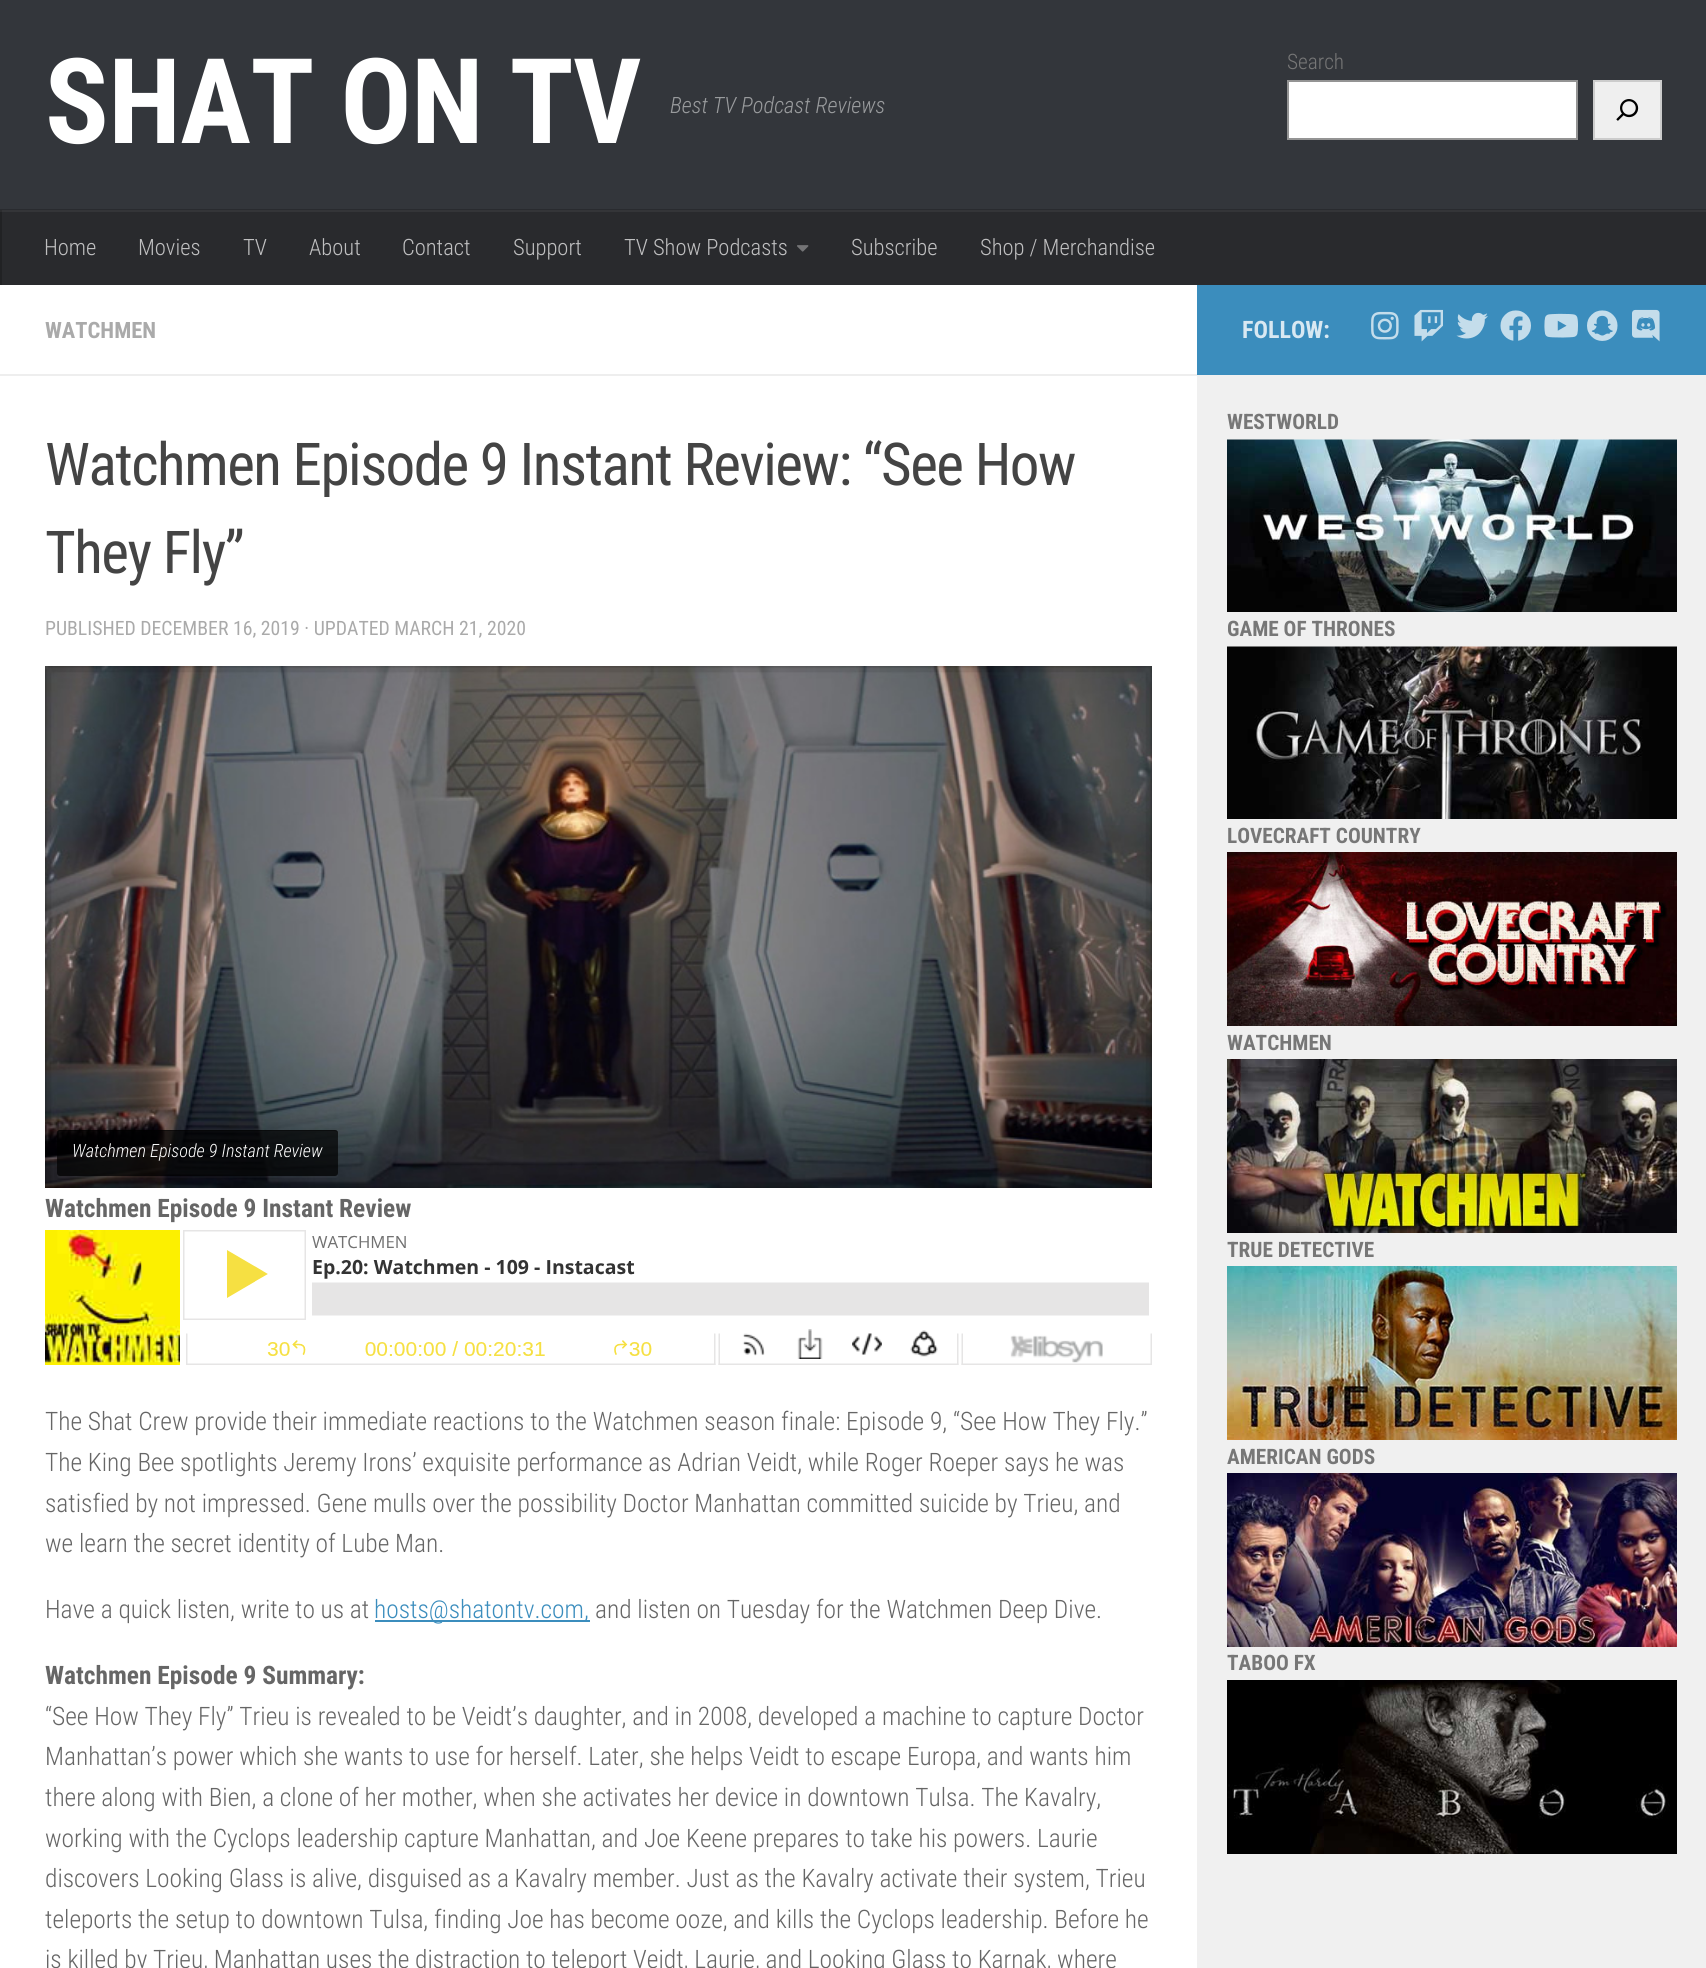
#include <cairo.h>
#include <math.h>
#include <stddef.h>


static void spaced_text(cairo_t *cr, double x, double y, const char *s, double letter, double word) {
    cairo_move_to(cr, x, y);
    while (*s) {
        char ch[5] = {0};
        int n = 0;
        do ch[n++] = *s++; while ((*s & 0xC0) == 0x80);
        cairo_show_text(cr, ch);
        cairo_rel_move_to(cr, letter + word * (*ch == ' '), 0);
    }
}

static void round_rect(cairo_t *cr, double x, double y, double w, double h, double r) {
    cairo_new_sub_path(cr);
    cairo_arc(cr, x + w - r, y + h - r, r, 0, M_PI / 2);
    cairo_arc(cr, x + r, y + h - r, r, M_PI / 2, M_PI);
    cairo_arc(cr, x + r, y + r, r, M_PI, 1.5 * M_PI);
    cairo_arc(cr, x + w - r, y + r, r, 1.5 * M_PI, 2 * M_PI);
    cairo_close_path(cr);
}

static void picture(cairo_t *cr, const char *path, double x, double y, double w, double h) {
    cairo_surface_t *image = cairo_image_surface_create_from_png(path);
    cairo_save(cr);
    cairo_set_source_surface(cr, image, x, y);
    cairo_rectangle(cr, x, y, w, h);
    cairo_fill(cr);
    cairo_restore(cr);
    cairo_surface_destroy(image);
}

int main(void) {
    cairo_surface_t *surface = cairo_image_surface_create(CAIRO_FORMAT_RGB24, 1706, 1968);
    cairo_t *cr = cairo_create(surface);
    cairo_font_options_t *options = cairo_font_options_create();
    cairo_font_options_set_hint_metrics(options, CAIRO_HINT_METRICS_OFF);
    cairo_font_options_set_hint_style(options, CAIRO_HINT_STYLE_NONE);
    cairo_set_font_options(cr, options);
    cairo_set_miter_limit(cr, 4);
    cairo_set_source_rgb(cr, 0.2, 0.212, 0.231);
    cairo_paint(cr);
    cairo_select_font_face(cr, "Roboto Condensed", CAIRO_FONT_SLANT_NORMAL, CAIRO_FONT_WEIGHT_BOLD);
    cairo_set_font_size(cr, 118.5);
    cairo_set_source_rgb(cr, 1, 1, 1);
    spaced_text(cr, 45, 143, "SHAT ON TV", -0.75, 0);
    cairo_select_font_face(cr, "Roboto Condensed Light", CAIRO_FONT_SLANT_ITALIC, CAIRO_FONT_WEIGHT_NORMAL);
    cairo_set_font_size(cr, 22.5);
    cairo_set_source_rgb(cr, 0.6, 0.608, 0.616);
    cairo_move_to(cr, 670, 113);
    cairo_show_text(cr, "Best TV Podcast Reviews");
    cairo_select_font_face(cr, "Roboto Condensed Light", CAIRO_FONT_SLANT_NORMAL, CAIRO_FONT_WEIGHT_NORMAL);
    cairo_set_font_size(cr, 21.25);
    cairo_set_source_rgb(cr, 0.467, 0.467, 0.467);
    cairo_move_to(cr, 1287, 69);
    cairo_show_text(cr, "Search");
    cairo_set_source_rgb(cr, 1, 1, 1);
    cairo_rectangle(cr, 1288, 81, 289, 58);
    cairo_fill_preserve(cr);
    cairo_set_source_rgb(cr, 0.58, 0.58, 0.58);
    cairo_stroke(cr);
    cairo_set_source_rgb(cr, 0.937, 0.937, 0.937);
    cairo_rectangle(cr, 1594, 81, 67, 58);
    cairo_fill_preserve(cr);
    cairo_set_source_rgb(cr, 0.8, 0.8, 0.8);
    cairo_stroke(cr);
    picture(cr, "img1.png", 1616, 99, 23, 22);
    cairo_set_source_rgb(cr, 0.161, 0.169, 0.184);
    cairo_rectangle(cr, 0, 209, 1706, 1);
    cairo_fill(cr);
    cairo_set_source_rgb(cr, 0.161, 0.165, 0.176);
    cairo_rectangle(cr, 2, 212, 1704, 73);
    cairo_fill(cr);
    cairo_set_source_rgb(cr, 0.204, 0.208, 0.22);
    cairo_rectangle(cr, 0, 210, 1706, 2);
    cairo_fill(cr);
    cairo_set_source_rgb(cr, 0.129, 0.133, 0.141);
    cairo_rectangle(cr, 0, 210, 2, 75);
    cairo_fill(cr);
    cairo_set_source_rgb(cr, 0.173, 0.176, 0.184);
    cairo_rectangle(cr, 0, 210, 2, 2);
    cairo_fill(cr);
    cairo_set_font_size(cr, 22.5);
    cairo_set_source_rgb(cr, 0.749, 0.749, 0.753);
    cairo_move_to(cr, 44, 255);
    cairo_show_text(cr, "Home");
    cairo_move_to(cr, 138, 255);
    cairo_show_text(cr, "Movies");
    cairo_move_to(cr, 243, 255);
    cairo_show_text(cr, "TV");
    cairo_move_to(cr, 309, 255);
    cairo_show_text(cr, "About");
    cairo_move_to(cr, 402, 255);
    cairo_show_text(cr, "Contact");
    cairo_move_to(cr, 513, 255);
    cairo_show_text(cr, "Support");
    cairo_move_to(cr, 624, 255);
    cairo_show_text(cr, "TV Show Podcasts");
    picture(cr, "img2.png", 797, 245, 12, 7);
    cairo_move_to(cr, 851, 255);
    cairo_show_text(cr, "Subscribe");
    cairo_move_to(cr, 980, 255);
    cairo_show_text(cr, "Shop / Merchandise");
    cairo_set_source_rgb(cr, 1, 1, 1);
    cairo_rectangle(cr, 0, 285, 1197, 1683);
    cairo_fill(cr);
    cairo_set_source_rgb(cr, 0.933, 0.933, 0.933);
    cairo_rectangle(cr, 0, 374, 1197, 2);
    cairo_fill(cr);
    cairo_select_font_face(cr, "Roboto Condensed", CAIRO_FONT_SLANT_NORMAL, CAIRO_FONT_WEIGHT_BOLD);
    cairo_set_source_rgb(cr, 0.667, 0.667, 0.667);
    cairo_move_to(cr, 45, 338);
    cairo_show_text(cr, "WATCHMEN");
    cairo_select_font_face(cr, "Roboto Condensed", CAIRO_FONT_SLANT_NORMAL, CAIRO_FONT_WEIGHT_NORMAL);
    cairo_set_font_size(cr, 59.1);
    cairo_set_source_rgb(cr, 0.267, 0.267, 0.267);
    spaced_text(cr, 45, 485, "Watchmen Episode 9 Instant Review: “See How", -1.5, 0);
    spaced_text(cr, 45, 573, "They Fly”", -1.5, 0);
    cairo_set_font_size(cr, 19.75);
    cairo_set_source_rgb(cr, 0.667, 0.667, 0.667);
    cairo_move_to(cr, 45, 635);
    cairo_show_text(cr, "PUBLISHED DECEMBER 16, 2019 · UPDATED MARCH 21, 2020");
    picture(cr, "img3.png", 45, 666, 1107, 522);
    cairo_set_source_rgba(cr, 1, 1, 1, 0.03);
    cairo_new_path(cr);
    cairo_move_to(cr, 57, 1173);
    cairo_line_to(cr, 57, 1175);
    cairo_curve_to(cr, 57, 1177, 58, 1178, 60, 1178);
    cairo_line_to(cr, 335, 1178);
    cairo_curve_to(cr, 337, 1178, 338, 1177, 338, 1175);
    cairo_line_to(cr, 338, 1134);
    cairo_line_to(cr, 337, 1132);
    cairo_line_to(cr, 338, 1173);
    cairo_curve_to(cr, 338, 1175, 336, 1176, 334, 1176);
    cairo_line_to(cr, 60, 1176);
    cairo_curve_to(cr, 58, 1176, 57, 1175, 57, 1173);
    cairo_close_path(cr);
    cairo_fill(cr);
    cairo_set_source_rgba(cr, 0, 0, 0, 0.7);
    round_rect(cr, 57, 1130, 281, 46, 3);
    cairo_fill(cr);
    cairo_set_source_rgba(cr, 0, 0, 0, 0.4);
    cairo_new_path(cr);
    cairo_move_to(cr, 60, 1131);
    cairo_line_to(cr, 334, 1131);
    cairo_curve_to(cr, 336, 1131, 338, 1132, 338, 1134);
    cairo_line_to(cr, 338, 1133);
    cairo_curve_to(cr, 338, 1131, 337, 1130, 335, 1130);
    cairo_line_to(cr, 60, 1130);
    cairo_curve_to(cr, 58, 1130, 57, 1131, 57, 1133);
    cairo_line_to(cr, 57, 1134);
    cairo_curve_to(cr, 57, 1132, 58, 1131, 60, 1131);
    cairo_close_path(cr);
    cairo_fill(cr);
    cairo_select_font_face(cr, "Roboto Condensed Light", CAIRO_FONT_SLANT_ITALIC, CAIRO_FONT_WEIGHT_NORMAL);
    cairo_set_font_size(cr, 18.3);
    cairo_set_source_rgb(cr, 1, 1, 1);
    cairo_move_to(cr, 72, 1157);
    cairo_show_text(cr, "Watchmen Episode 9 Instant Review");
    cairo_select_font_face(cr, "Roboto Condensed", CAIRO_FONT_SLANT_NORMAL, CAIRO_FONT_WEIGHT_BOLD);
    cairo_set_font_size(cr, 25.4);
    cairo_set_source_rgb(cr, 0.4, 0.4, 0.4);
    cairo_move_to(cr, 45, 1217);
    cairo_show_text(cr, "Watchmen Episode 9 Instant Review");
    picture(cr, "img4.png", 45, 1230, 1107, 135);
    cairo_select_font_face(cr, "Roboto Condensed Light", CAIRO_FONT_SLANT_NORMAL, CAIRO_FONT_WEIGHT_NORMAL);
    cairo_move_to(cr, 45, 1430);
    cairo_show_text(cr, "The Shat Crew provide their immediate reactions to the Watchmen season finale: Episode 9, “See How They Fly.”");
    cairo_move_to(cr, 45, 1471);
    cairo_show_text(cr, "The King Bee spotlights Jeremy Irons’ exquisite performance as Adrian Veidt, while Roger Roeper says he was");
    cairo_move_to(cr, 45, 1512);
    cairo_show_text(cr, "satisfied by not impressed. Gene mulls over the possibility Doctor Manhattan committed suicide by Trieu, and");
    cairo_move_to(cr, 45, 1552);
    cairo_show_text(cr, "we learn the secret identity of Lube Man.");
    cairo_move_to(cr, 45, 1618);
    cairo_show_text(cr, "Have a quick listen, write to us at");
    cairo_set_source_rgb(cr, 0.231, 0.553, 0.741);
    cairo_rectangle(cr, 375, 1620, 215, 2);
    cairo_fill(cr);
    cairo_move_to(cr, 374, 1618);
    cairo_show_text(cr, "hosts@shatontv.com,");
    cairo_set_source_rgb(cr, 0.4, 0.4, 0.4);
    cairo_move_to(cr, 595, 1618);
    cairo_show_text(cr, "and listen on Tuesday for the Watchmen Deep Dive.");
    cairo_select_font_face(cr, "Roboto Condensed", CAIRO_FONT_SLANT_NORMAL, CAIRO_FONT_WEIGHT_BOLD);
    cairo_move_to(cr, 45, 1684);
    cairo_show_text(cr, "Watchmen Episode 9 Summary:");
    cairo_select_font_face(cr, "Roboto Condensed Light", CAIRO_FONT_SLANT_NORMAL, CAIRO_FONT_WEIGHT_NORMAL);
    cairo_move_to(cr, 45, 1725);
    cairo_show_text(cr, "“See How They Fly” Trieu is revealed to be Veidt’s daughter, and in 2008, developed a machine to capture Doctor");
    cairo_move_to(cr, 45, 1765);
    cairo_show_text(cr, "Manhattan’s power which she wants to use for herself. Later, she helps Veidt to escape Europa, and wants him");
    cairo_move_to(cr, 45, 1806);
    cairo_show_text(cr, "there along with Bien, a clone of her mother, when she activates her device in downtown Tulsa. The Kavalry,");
    cairo_move_to(cr, 45, 1847);
    cairo_show_text(cr, "working with the Cyclops leadership capture Manhattan, and Joe Keene prepares to take his powers. Laurie");
    cairo_move_to(cr, 45, 1887);
    cairo_show_text(cr, "discovers Looking Glass is alive, disguised as a Kavalry member. Just as the Kavalry activate their system, Trieu");
    cairo_move_to(cr, 45, 1928);
    cairo_show_text(cr, "teleports the setup to downtown Tulsa, finding Joe has become ooze, and kills the Cyclops leadership. Before he");
    cairo_move_to(cr, 45, 1968);
    cairo_show_text(cr, "is killed by Trieu, Manhattan uses the distraction to teleport Veidt, Laurie, and Looking Glass to Karnak, where");
    cairo_set_source_rgb(cr, 0.231, 0.553, 0.741);
    cairo_rectangle(cr, 1197, 285, 509, 90);
    cairo_fill(cr);
    cairo_select_font_face(cr, "Roboto Condensed", CAIRO_FONT_SLANT_NORMAL, CAIRO_FONT_WEIGHT_BOLD);
    cairo_set_font_size(cr, 24);
    cairo_set_source_rgb(cr, 0.847, 0.91, 0.949);
    cairo_move_to(cr, 1242, 338);
    cairo_show_text(cr, "FOLLOW:");
    picture(cr, "img5.png", 1371, 311, 28, 29);
    picture(cr, "img6.png", 1414, 309, 29, 33);
    picture(cr, "img7.png", 1456, 312, 32, 27);
    picture(cr, "img8.png", 1500, 310, 31, 31);
    picture(cr, "img9.png", 1544, 313, 34, 25);
    picture(cr, "img10.png", 1587, 310, 31, 31);
    picture(cr, "img11.png", 1632, 309, 28, 33);
    cairo_set_source_rgb(cr, 0.941, 0.941, 0.941);
    cairo_rectangle(cr, 1197, 375, 509, 1593);
    cairo_fill(cr);
    cairo_set_font_size(cr, 21.25);
    cairo_set_source_rgb(cr, 0.467, 0.467, 0.467);
    cairo_move_to(cr, 1227, 429);
    cairo_show_text(cr, "WESTWORLD");
    picture(cr, "img12.png", 1227, 439, 450, 173);
    cairo_move_to(cr, 1227, 636);
    cairo_show_text(cr, "GAME OF THRONES");
    picture(cr, "img13.png", 1227, 646, 450, 173);
    cairo_move_to(cr, 1227, 843);
    cairo_show_text(cr, "LOVECRAFT COUNTRY");
    picture(cr, "img14.png", 1227, 852, 450, 174);
    cairo_move_to(cr, 1227, 1050);
    cairo_show_text(cr, "WATCHMEN");
    picture(cr, "img15.png", 1227, 1059, 450, 174);
    cairo_move_to(cr, 1227, 1257);
    cairo_show_text(cr, "TRUE DETECTIVE");
    picture(cr, "img16.png", 1227, 1266, 450, 174);
    cairo_move_to(cr, 1227, 1464);
    cairo_show_text(cr, "AMERICAN GODS");
    picture(cr, "img17.png", 1227, 1473, 450, 174);
    cairo_move_to(cr, 1227, 1670);
    cairo_show_text(cr, "TABOO FX");
    picture(cr, "img18.png", 1227, 1680, 450, 174);
    cairo_surface_write_to_png(surface, "page.png");
    cairo_font_options_destroy(options);
    cairo_destroy(cr);
    cairo_surface_destroy(surface);
    return 0;
}
